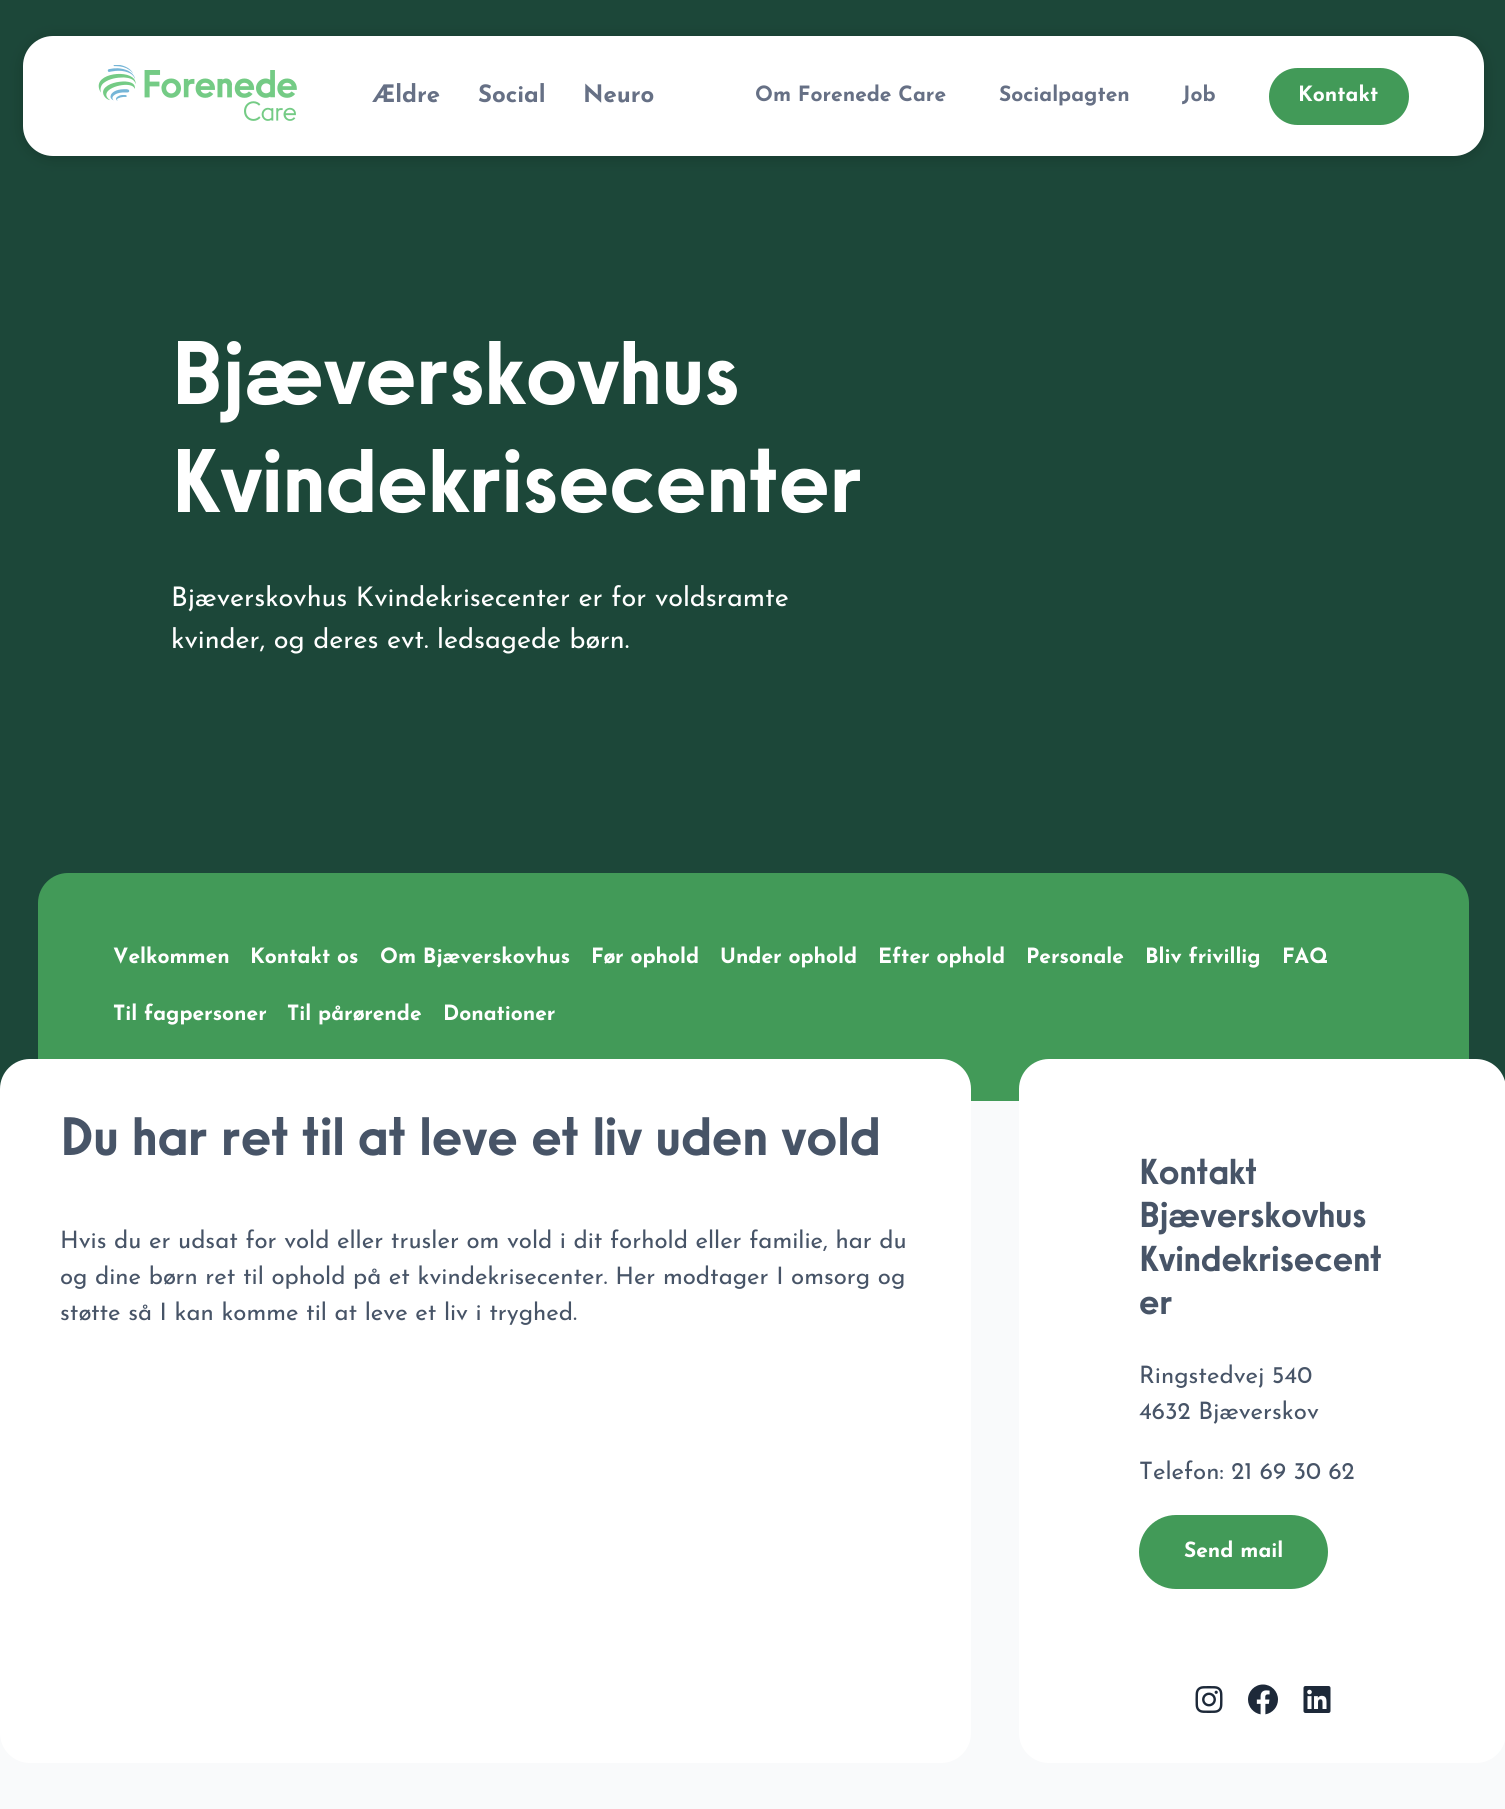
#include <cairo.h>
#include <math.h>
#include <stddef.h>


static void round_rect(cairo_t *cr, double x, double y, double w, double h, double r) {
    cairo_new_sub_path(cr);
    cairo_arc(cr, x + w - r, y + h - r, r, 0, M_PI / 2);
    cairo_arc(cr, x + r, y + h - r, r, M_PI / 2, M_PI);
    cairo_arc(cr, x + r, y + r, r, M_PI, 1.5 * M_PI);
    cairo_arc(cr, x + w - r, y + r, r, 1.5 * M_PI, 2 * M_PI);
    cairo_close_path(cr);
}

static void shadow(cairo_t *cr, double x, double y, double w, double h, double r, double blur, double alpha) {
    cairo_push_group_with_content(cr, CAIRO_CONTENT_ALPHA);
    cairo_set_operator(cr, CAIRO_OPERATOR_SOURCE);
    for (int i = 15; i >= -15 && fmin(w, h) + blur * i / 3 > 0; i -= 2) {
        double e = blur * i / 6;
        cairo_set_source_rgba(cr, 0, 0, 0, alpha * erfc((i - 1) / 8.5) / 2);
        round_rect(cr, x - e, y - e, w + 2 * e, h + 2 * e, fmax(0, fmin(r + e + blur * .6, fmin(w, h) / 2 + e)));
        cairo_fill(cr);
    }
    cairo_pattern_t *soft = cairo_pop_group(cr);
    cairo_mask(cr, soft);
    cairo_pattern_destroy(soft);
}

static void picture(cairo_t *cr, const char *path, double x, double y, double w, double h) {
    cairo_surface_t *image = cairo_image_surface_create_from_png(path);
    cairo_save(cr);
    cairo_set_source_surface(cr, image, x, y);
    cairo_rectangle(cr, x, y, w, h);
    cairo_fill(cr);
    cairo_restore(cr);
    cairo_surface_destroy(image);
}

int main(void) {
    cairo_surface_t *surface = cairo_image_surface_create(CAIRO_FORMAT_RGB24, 1505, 1809);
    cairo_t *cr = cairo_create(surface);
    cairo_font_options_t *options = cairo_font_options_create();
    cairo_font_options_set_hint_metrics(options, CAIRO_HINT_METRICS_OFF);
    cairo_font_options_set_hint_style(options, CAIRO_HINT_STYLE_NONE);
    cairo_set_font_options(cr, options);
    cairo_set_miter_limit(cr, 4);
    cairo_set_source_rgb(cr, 0.976, 0.98, 0.984);
    cairo_paint(cr);
    cairo_set_source_rgb(cr, 0.11, 0.278, 0.224);
    cairo_rectangle(cr, 0, 0, 1505, 1089);
    cairo_fill(cr);
    cairo_set_source_rgb(cr, 0, 0, 0);
    shadow(cr, 23, 38, 1461, 120, 30, 7.5, 0.2);
    cairo_set_source_rgb(cr, 1, 1, 1);
    round_rect(cr, 23, 36, 1461, 120, 30);
    cairo_fill(cr);
    picture(cr, "img1.png", 98, 65, 199, 56);
    cairo_select_font_face(cr, "Josefin Sans", CAIRO_FONT_SLANT_NORMAL, CAIRO_FONT_WEIGHT_BOLD);
    cairo_set_font_size(cr, 24);
    cairo_set_source_rgb(cr, 0.4, 0.439, 0.522);
    cairo_move_to(cr, 372, 102);
    cairo_show_text(cr, "Ældre");
    cairo_move_to(cr, 478, 102);
    cairo_show_text(cr, "Social");
    cairo_move_to(cr, 583, 102);
    cairo_show_text(cr, "Neuro");
    cairo_set_font_size(cr, 21);
    cairo_move_to(cr, 755, 101);
    cairo_show_text(cr, "Om Forenede Care");
    cairo_move_to(cr, 999, 101);
    cairo_show_text(cr, "Socialpagten");
    cairo_move_to(cr, 1182, 101);
    cairo_show_text(cr, "Job");
    cairo_set_source_rgb(cr, 0.259, 0.604, 0.345);
    round_rect(cr, 1269, 68, 140, 57, 28.5);
    cairo_fill(cr);
    cairo_set_source_rgb(cr, 1, 1, 1);
    cairo_move_to(cr, 1298, 101);
    cairo_show_text(cr, "Kontakt");
    cairo_select_font_face(cr, "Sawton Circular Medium", CAIRO_FONT_SLANT_NORMAL, CAIRO_FONT_WEIGHT_NORMAL);
    cairo_set_font_size(cr, 90);
    cairo_move_to(cr, 171, 404);
    cairo_show_text(cr, "Bjæverskovhus");
    cairo_move_to(cr, 171, 512);
    cairo_show_text(cr, "Kvindekrisecenter");
    cairo_select_font_face(cr, "Josefin Sans", CAIRO_FONT_SLANT_NORMAL, CAIRO_FONT_WEIGHT_NORMAL);
    cairo_set_font_size(cr, 27);
    cairo_move_to(cr, 171, 606);
    cairo_show_text(cr, "Bjæverskovhus Kvindekrisecenter er for voldsramte");
    cairo_move_to(cr, 171, 648);
    cairo_show_text(cr, "kvinder, og deres evt. ledsagede børn.");
    cairo_set_source_rgb(cr, 0.259, 0.604, 0.345);
    cairo_new_path(cr);
    cairo_move_to(cr, 68, 873);
    cairo_line_to(cr, 1439, 873);
    cairo_curve_to(cr, 1455.5, 873, 1469, 886.5, 1469, 903);
    cairo_line_to(cr, 1469, 1101);
    cairo_line_to(cr, 38, 1101);
    cairo_line_to(cr, 38, 903);
    cairo_curve_to(cr, 38, 886.5, 51.5, 873, 68, 873);
    cairo_close_path(cr);
    cairo_fill(cr);
    cairo_select_font_face(cr, "Josefin Sans", CAIRO_FONT_SLANT_NORMAL, CAIRO_FONT_WEIGHT_BOLD);
    cairo_set_font_size(cr, 21);
    cairo_set_source_rgb(cr, 1, 1, 1);
    cairo_move_to(cr, 113, 963);
    cairo_show_text(cr, "Velkommen");
    cairo_move_to(cr, 250, 963);
    cairo_show_text(cr, "Kontakt os");
    cairo_move_to(cr, 380, 963);
    cairo_show_text(cr, "Om Bjæverskovhus");
    cairo_move_to(cr, 591, 963);
    cairo_show_text(cr, "Før ophold");
    cairo_move_to(cr, 720, 963);
    cairo_show_text(cr, "Under ophold");
    cairo_move_to(cr, 878, 963);
    cairo_show_text(cr, "Efter ophold");
    cairo_move_to(cr, 1026, 963);
    cairo_show_text(cr, "Personale");
    cairo_move_to(cr, 1145, 963);
    cairo_show_text(cr, "Bliv frivillig");
    cairo_move_to(cr, 1282, 963);
    cairo_show_text(cr, "FAQ");
    cairo_move_to(cr, 113, 1020);
    cairo_show_text(cr, "Til fagpersoner");
    cairo_move_to(cr, 287, 1020);
    cairo_show_text(cr, "Til pårørende");
    cairo_move_to(cr, 443, 1020);
    cairo_show_text(cr, "Donationer");
    round_rect(cr, 0, 1059, 971, 704, 30);
    cairo_fill(cr);
    cairo_select_font_face(cr, "Sawton Circular Medium", CAIRO_FONT_SLANT_NORMAL, CAIRO_FONT_WEIGHT_NORMAL);
    cairo_set_font_size(cr, 54);
    cairo_set_source_rgb(cr, 0.278, 0.329, 0.404);
    cairo_move_to(cr, 60, 1155);
    cairo_show_text(cr, "Du har ret til at leve et liv uden vold");
    cairo_select_font_face(cr, "Josefin Sans", CAIRO_FONT_SLANT_NORMAL, CAIRO_FONT_WEIGHT_NORMAL);
    cairo_set_font_size(cr, 24);
    cairo_move_to(cr, 60, 1248);
    cairo_show_text(cr, "Hvis du er udsat for vold eller trusler om vold i dit forhold eller familie, har du");
    cairo_move_to(cr, 60, 1284);
    cairo_show_text(cr, "og dine børn ret til ophold på et kvindekrisecenter. Her modtager I omsorg og");
    cairo_move_to(cr, 60, 1320);
    cairo_show_text(cr, "støtte så I kan komme til at leve et liv i tryghed.");
    cairo_set_source_rgb(cr, 1, 1, 1);
    round_rect(cr, 1019, 1059, 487, 704, 30);
    cairo_fill(cr);
    cairo_select_font_face(cr, "Sawton Circular Medium", CAIRO_FONT_SLANT_NORMAL, CAIRO_FONT_WEIGHT_NORMAL);
    cairo_set_font_size(cr, 36);
    cairo_set_source_rgb(cr, 0.278, 0.329, 0.404);
    cairo_move_to(cr, 1139, 1184);
    cairo_show_text(cr, "Kontakt");
    cairo_move_to(cr, 1139, 1227);
    cairo_show_text(cr, "Bjæverskovhus");
    cairo_move_to(cr, 1139, 1271);
    cairo_show_text(cr, "Kvindekrisecent");
    cairo_move_to(cr, 1139, 1314);
    cairo_show_text(cr, "er");
    cairo_select_font_face(cr, "Josefin Sans", CAIRO_FONT_SLANT_NORMAL, CAIRO_FONT_WEIGHT_NORMAL);
    cairo_set_font_size(cr, 24);
    cairo_move_to(cr, 1139, 1383);
    cairo_show_text(cr, "Ringstedvej 540");
    cairo_move_to(cr, 1139, 1419);
    cairo_show_text(cr, "4632 Bjæverskov");
    cairo_move_to(cr, 1139, 1479);
    cairo_show_text(cr, "Telefon: 21 69 30 62");
    cairo_set_source_rgb(cr, 0.259, 0.604, 0.345);
    round_rect(cr, 1139, 1515, 189, 74, 37);
    cairo_fill(cr);
    cairo_select_font_face(cr, "Josefin Sans", CAIRO_FONT_SLANT_NORMAL, CAIRO_FONT_WEIGHT_BOLD);
    cairo_set_font_size(cr, 21);
    cairo_set_source_rgb(cr, 1, 1, 1);
    cairo_move_to(cr, 1184, 1557);
    cairo_show_text(cr, "Send mail");
    picture(cr, "img2.png", 1195, 1686, 28, 27);
    picture(cr, "img3.png", 1248, 1684, 30, 31);
    picture(cr, "img4.png", 1303, 1686, 28, 27);
    cairo_surface_write_to_png(surface, "page.png");
    cairo_font_options_destroy(options);
    cairo_destroy(cr);
    cairo_surface_destroy(surface);
    return 0;
}
